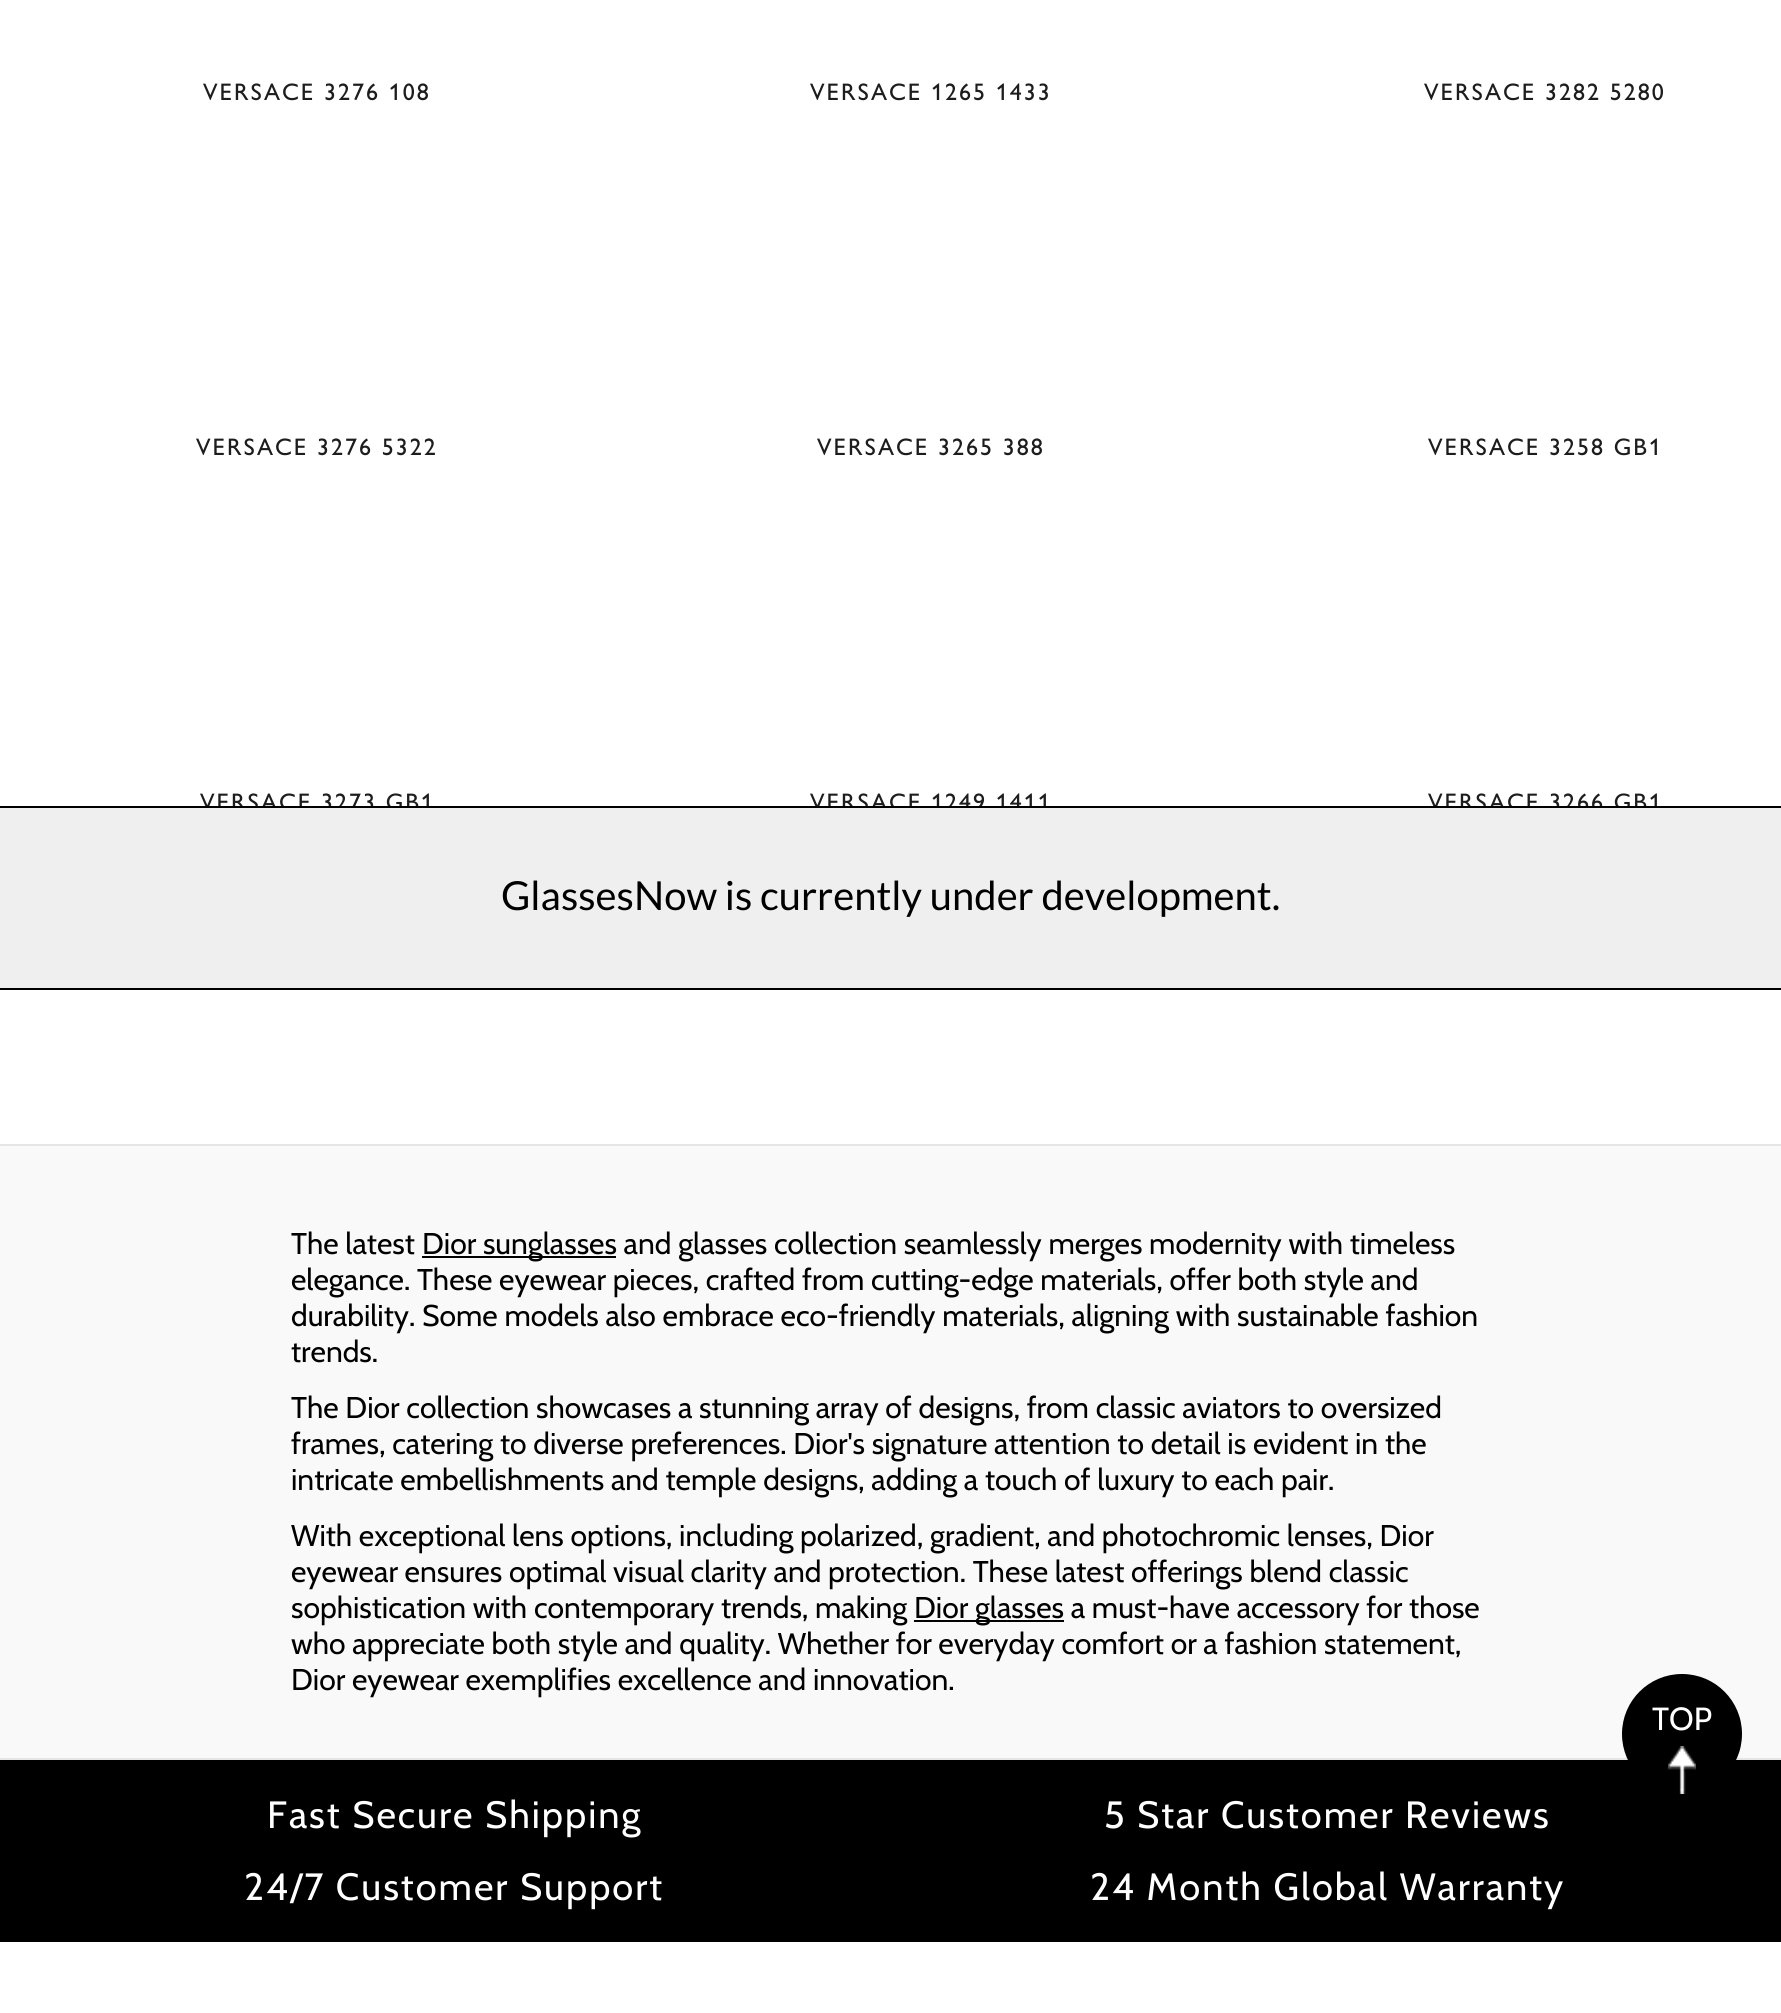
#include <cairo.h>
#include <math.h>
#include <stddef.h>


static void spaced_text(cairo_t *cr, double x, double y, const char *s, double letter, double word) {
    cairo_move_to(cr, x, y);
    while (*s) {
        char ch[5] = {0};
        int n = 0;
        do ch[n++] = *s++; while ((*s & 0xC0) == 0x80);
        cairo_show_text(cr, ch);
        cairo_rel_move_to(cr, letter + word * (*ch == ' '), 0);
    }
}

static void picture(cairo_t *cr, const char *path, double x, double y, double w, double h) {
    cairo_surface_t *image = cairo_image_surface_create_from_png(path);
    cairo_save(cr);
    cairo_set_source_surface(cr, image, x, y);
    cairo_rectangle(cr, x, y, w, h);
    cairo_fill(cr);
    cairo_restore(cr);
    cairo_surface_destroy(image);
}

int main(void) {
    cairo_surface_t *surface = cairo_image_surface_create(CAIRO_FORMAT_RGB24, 1781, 2013);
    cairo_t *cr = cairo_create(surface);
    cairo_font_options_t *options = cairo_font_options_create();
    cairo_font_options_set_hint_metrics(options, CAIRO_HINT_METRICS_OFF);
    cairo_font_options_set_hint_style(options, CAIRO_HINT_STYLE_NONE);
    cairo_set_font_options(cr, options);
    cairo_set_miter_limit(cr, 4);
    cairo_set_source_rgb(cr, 1, 1, 1);
    cairo_paint(cr);
    cairo_select_font_face(cr, "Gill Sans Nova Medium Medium", CAIRO_FONT_SLANT_NORMAL, CAIRO_FONT_WEIGHT_NORMAL);
    cairo_set_font_size(cr, 24);
    cairo_set_source_rgb(cr, 0.114, 0.114, 0.114);
    spaced_text(cr, 203, 100, "VERSACE 3276 108", 2, 0);
    spaced_text(cr, 810, 100, "VERSACE 1265 1433", 2, 0);
    spaced_text(cr, 1424, 100, "VERSACE 3282 5280", 2, 0);
    spaced_text(cr, 196, 455, "VERSACE 3276 5322", 2, 0);
    spaced_text(cr, 817, 455, "VERSACE 3265 388", 2, 0);
    spaced_text(cr, 1428, 455, "VERSACE 3258 GB1", 2, 0);
    spaced_text(cr, 200, 810, "VERSACE 3273 GB1", 2, 0);
    spaced_text(cr, 810, 810, "VERSACE 1249 1411", 2, 0);
    spaced_text(cr, 1428, 810, "VERSACE 3266 GB1", 2, 0);
    cairo_set_source_rgb(cr, 0.976, 0.976, 0.976);
    cairo_rectangle(cr, 0, 1146, 1781, 612);
    cairo_fill(cr);
    cairo_set_source_rgb(cr, 0.898, 0.898, 0.898);
    cairo_rectangle(cr, 0, 1144, 1781, 2);
    cairo_fill(cr);
    cairo_rectangle(cr, 0, 1758, 1781, 2);
    cairo_fill(cr);
    cairo_select_font_face(cr, "Cabin", CAIRO_FONT_SLANT_NORMAL, CAIRO_FONT_WEIGHT_NORMAL);
    cairo_set_font_size(cr, 30);
    cairo_set_source_rgb(cr, 0, 0, 0);
    cairo_move_to(cr, 291, 1254);
    cairo_show_text(cr, "The latest");
    cairo_rectangle(cr, 422, 1256, 194, 2);
    cairo_fill(cr);
    cairo_move_to(cr, 422, 1254);
    cairo_show_text(cr, "Dior sunglasses and glasses collection seamlessly merges modernity with timeless");
    cairo_move_to(cr, 291, 1290);
    cairo_show_text(cr, "elegance. These eyewear pieces, crafted from cutting-edge materials, offer both style and");
    cairo_move_to(cr, 291, 1326);
    cairo_show_text(cr, "durability. Some models also embrace eco-friendly materials, aligning with sustainable fashion");
    cairo_move_to(cr, 291, 1362);
    cairo_show_text(cr, "trends.");
    cairo_move_to(cr, 291, 1418);
    cairo_show_text(cr, "The Dior collection showcases a stunning array of designs, from classic aviators to oversized");
    cairo_move_to(cr, 291, 1454);
    cairo_show_text(cr, "frames, catering to diverse preferences. Dior's signature attention to detail is evident in the");
    cairo_move_to(cr, 291, 1490);
    cairo_show_text(cr, "intricate embellishments and temple designs, adding a touch of luxury to each pair.");
    cairo_move_to(cr, 291, 1546);
    cairo_show_text(cr, "With exceptional lens options, including polarized, gradient, and photochromic lenses, Dior");
    cairo_move_to(cr, 291, 1582);
    cairo_show_text(cr, "eyewear ensures optimal visual clarity and protection. These latest offerings blend classic");
    cairo_move_to(cr, 291, 1618);
    cairo_show_text(cr, "sophistication with contemporary trends, making");
    cairo_rectangle(cr, 914, 1620, 150, 2);
    cairo_fill(cr);
    cairo_move_to(cr, 914, 1618);
    cairo_show_text(cr, "Dior glasses a must-have accessory for those");
    cairo_move_to(cr, 291, 1654);
    cairo_show_text(cr, "who appreciate both style and quality. Whether for everyday comfort or a fashion statement,");
    cairo_move_to(cr, 291, 1690);
    cairo_show_text(cr, "Dior eyewear exemplifies excellence and innovation.");
    cairo_rectangle(cr, 0, 1760, 1781, 182);
    cairo_fill(cr);
    cairo_set_font_size(cr, 38);
    cairo_set_source_rgb(cr, 1, 1, 1);
    spaced_text(cr, 267, 1828, "Fast Secure Shipping", 2, 0);
    spaced_text(cr, 1104, 1828, "5 Star Customer Reviews", 2, 0);
    spaced_text(cr, 244, 1900, "24/7 Customer Support", 2, 0);
    spaced_text(cr, 1090, 1900, "24 Month Global Warranty", 2, 0);
    cairo_set_source_rgb(cr, 0, 0, 0);
    cairo_rectangle(cr, 0, 806, 1781, 2);
    cairo_fill(cr);
    cairo_rectangle(cr, 0, 988, 1781, 2);
    cairo_fill(cr);
    cairo_set_source_rgb(cr, 0.937, 0.937, 0.937);
    cairo_rectangle(cr, 0, 808, 1781, 180);
    cairo_fill(cr);
    cairo_select_font_face(cr, "Lato", CAIRO_FONT_SLANT_NORMAL, CAIRO_FONT_WEIGHT_NORMAL);
    cairo_set_font_size(cr, 40);
    cairo_set_source_rgb(cr, 0, 0, 0);
    cairo_move_to(cr, 501, 910);
    cairo_show_text(cr, "GlassesNow is currently under development.");
    cairo_new_path(cr);
    cairo_arc(cr, 1682, 1734, 60, 0, 2 * M_PI);
    cairo_fill(cr);
    cairo_select_font_face(cr, "Cabin", CAIRO_FONT_SLANT_NORMAL, CAIRO_FONT_WEIGHT_NORMAL);
    cairo_set_font_size(cr, 32);
    cairo_set_source_rgb(cr, 1, 1, 1);
    cairo_move_to(cr, 1652, 1730);
    cairo_show_text(cr, "TOP");
    picture(cr, "img1.png", 1668, 1746, 28, 48);
    cairo_surface_write_to_png(surface, "page.png");
    cairo_font_options_destroy(options);
    cairo_destroy(cr);
    cairo_surface_destroy(surface);
    return 0;
}
